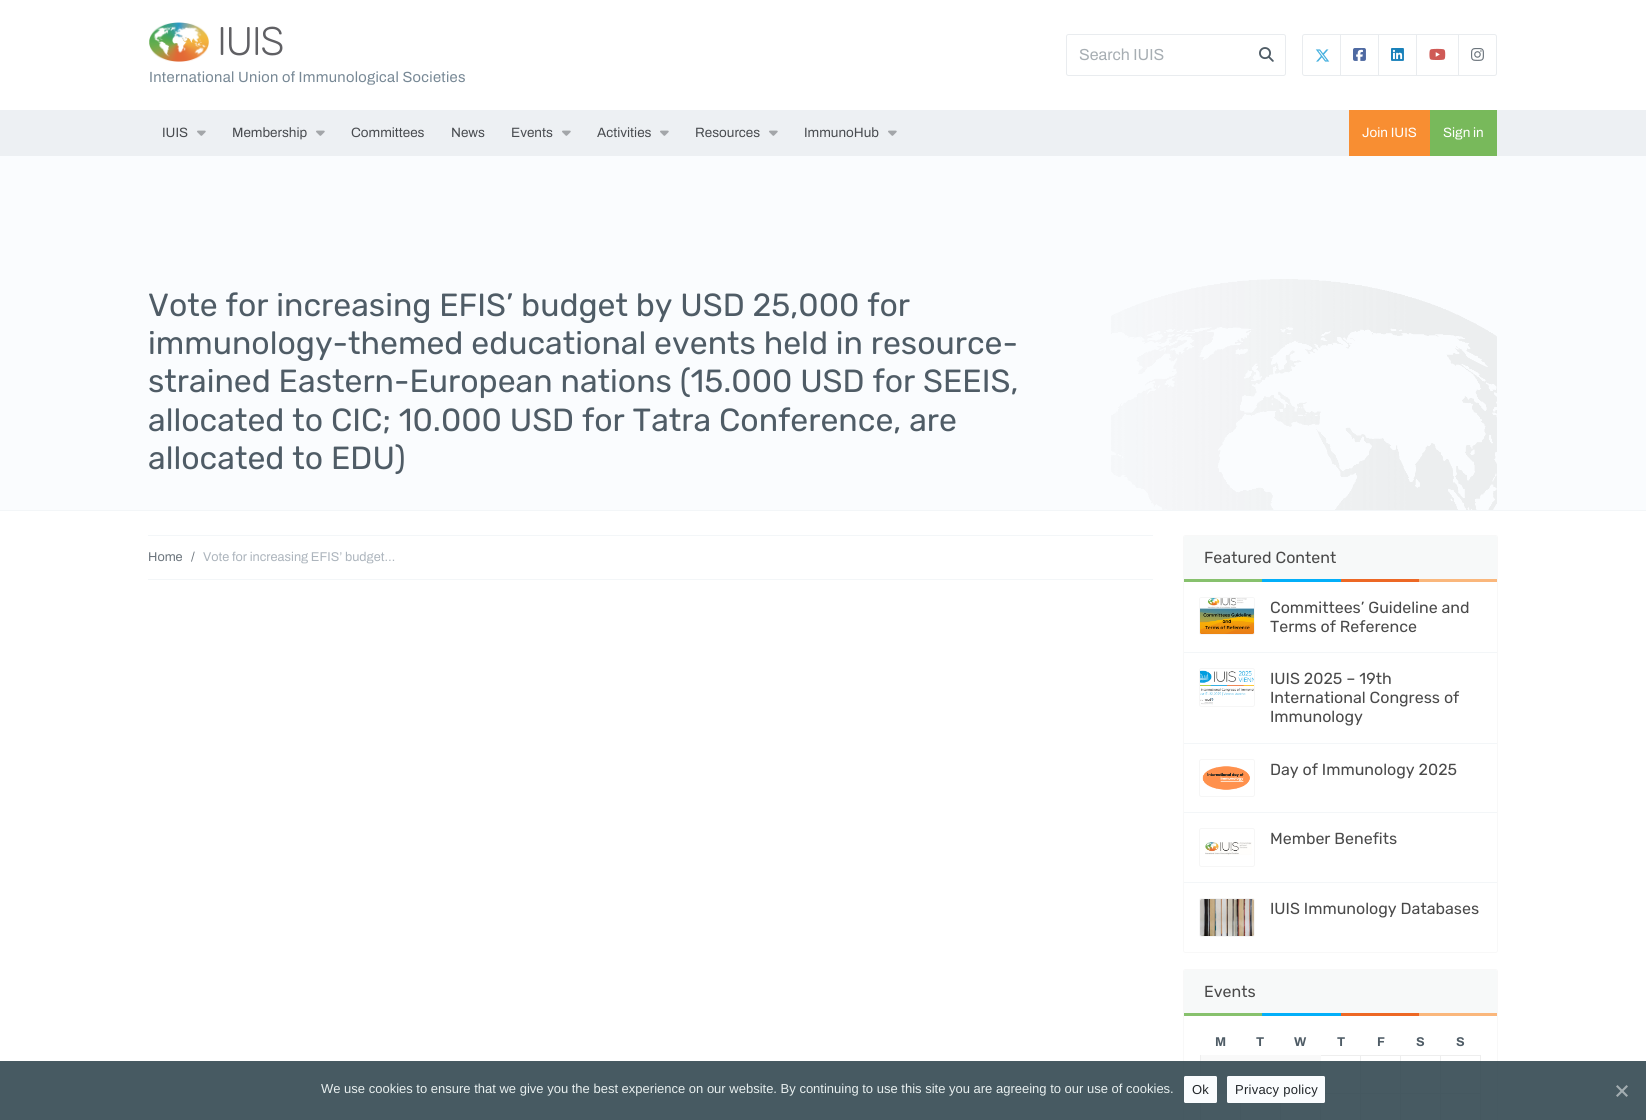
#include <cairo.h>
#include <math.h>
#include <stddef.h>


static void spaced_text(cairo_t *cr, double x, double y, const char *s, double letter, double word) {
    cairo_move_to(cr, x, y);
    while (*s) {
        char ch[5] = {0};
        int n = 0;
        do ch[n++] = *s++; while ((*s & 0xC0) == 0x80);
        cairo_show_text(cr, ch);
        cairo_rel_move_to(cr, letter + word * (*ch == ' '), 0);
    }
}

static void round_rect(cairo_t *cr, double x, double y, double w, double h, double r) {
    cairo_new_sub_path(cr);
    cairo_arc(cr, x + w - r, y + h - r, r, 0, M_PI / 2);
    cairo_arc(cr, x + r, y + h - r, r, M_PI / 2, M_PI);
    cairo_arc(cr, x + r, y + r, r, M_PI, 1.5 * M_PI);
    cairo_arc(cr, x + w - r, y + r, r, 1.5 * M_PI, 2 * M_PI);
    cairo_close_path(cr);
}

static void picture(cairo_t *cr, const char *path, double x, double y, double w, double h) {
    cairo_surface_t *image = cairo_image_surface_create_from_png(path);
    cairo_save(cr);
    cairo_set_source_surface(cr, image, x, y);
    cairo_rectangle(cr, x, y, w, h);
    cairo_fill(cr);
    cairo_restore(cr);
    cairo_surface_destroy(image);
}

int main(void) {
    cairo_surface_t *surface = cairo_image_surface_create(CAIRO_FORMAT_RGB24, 1646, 1120);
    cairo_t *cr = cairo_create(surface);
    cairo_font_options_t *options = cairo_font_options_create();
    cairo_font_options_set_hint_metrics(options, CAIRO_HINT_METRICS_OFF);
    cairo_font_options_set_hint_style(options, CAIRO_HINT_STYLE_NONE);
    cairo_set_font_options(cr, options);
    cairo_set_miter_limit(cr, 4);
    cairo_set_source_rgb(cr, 1, 1, 1);
    cairo_paint(cr);
    picture(cr, "img1.png", 149, 22, 60, 40);
    cairo_select_font_face(cr, "Rubik Light", CAIRO_FONT_SLANT_NORMAL, CAIRO_FONT_WEIGHT_NORMAL);
    cairo_set_font_size(cr, 40);
    cairo_set_source_rgb(cr, 0.376, 0.376, 0.392);
    spaced_text(cr, 217, 55, "IUIS", -1.5, 0);
    cairo_select_font_face(cr, "Archivo SemiBold", CAIRO_FONT_SLANT_NORMAL, CAIRO_FONT_WEIGHT_NORMAL);
    cairo_set_font_size(cr, 14.75);
    cairo_set_source_rgb(cr, 0.467, 0.533, 0.584);
    spaced_text(cr, 149, 82, "International Union of Immunological Societies", 0.3, 0);
    round_rect(cr, 1066.5, 34.5, 219, 41, 2);
    cairo_set_source_rgb(cr, 0.914, 0.925, 0.937);
    cairo_set_line_width(cr, 1);
    cairo_stroke(cr);
    cairo_set_font_size(cr, 16);
    cairo_set_source_rgb(cr, 0.655, 0.682, 0.702);
    cairo_move_to(cr, 1079, 60);
    cairo_show_text(cr, "Search IUIS");
    picture(cr, "img2.png", 1259, 47, 15, 15);
    cairo_new_path(cr);
    cairo_move_to(cr, 1304.5, 34.5);
    cairo_line_to(cr, 1340.5, 34.5);
    cairo_line_to(cr, 1340.5, 75.5);
    cairo_line_to(cr, 1304.5, 75.5);
    cairo_curve_to(cr, 1303.5, 75.5, 1302.5, 74.5, 1302.5, 73.5);
    cairo_line_to(cr, 1302.5, 36.5);
    cairo_curve_to(cr, 1302.5, 35.5, 1303.5, 34.5, 1304.5, 34.5);
    cairo_close_path(cr);
    cairo_set_source_rgb(cr, 0.914, 0.925, 0.937);
    cairo_stroke(cr);
    picture(cr, "img3.png", 1315, 49, 15, 13);
    cairo_rectangle(cr, 1340.5, 34.5, 38, 41);
    cairo_stroke(cr);
    picture(cr, "img4.png", 1353, 48, 13, 13);
    cairo_rectangle(cr, 1378.5, 34.5, 38, 41);
    cairo_stroke(cr);
    picture(cr, "img5.png", 1391, 48, 13, 13);
    cairo_rectangle(cr, 1416.5, 34.5, 42, 41);
    cairo_stroke(cr);
    picture(cr, "img6.png", 1429, 48, 17, 12);
    cairo_new_path(cr);
    cairo_move_to(cr, 1458.5, 34.5);
    cairo_line_to(cr, 1494.5, 34.5);
    cairo_curve_to(cr, 1495.5, 34.5, 1496.5, 35.5, 1496.5, 36.5);
    cairo_line_to(cr, 1496.5, 73.5);
    cairo_curve_to(cr, 1496.5, 74.5, 1495.5, 75.5, 1494.5, 75.5);
    cairo_line_to(cr, 1458.5, 75.5);
    cairo_close_path(cr);
    cairo_stroke(cr);
    picture(cr, "img7.png", 1471, 48, 13, 13);
    cairo_set_source_rgb(cr, 0.929, 0.941, 0.953);
    cairo_rectangle(cr, 0, 110, 1646, 46);
    cairo_fill(cr);
    cairo_set_font_size(cr, 13.5);
    cairo_set_source_rgb(cr, 0.286, 0.298, 0.314);
    cairo_move_to(cr, 162, 137);
    cairo_show_text(cr, "IUIS");
    picture(cr, "img8.png", 197, 130, 9, 6);
    cairo_move_to(cr, 232, 137);
    cairo_show_text(cr, "Membership");
    picture(cr, "img8.png", 316, 130, 9, 6);
    cairo_move_to(cr, 351, 137);
    cairo_show_text(cr, "Committees");
    cairo_move_to(cr, 451, 137);
    cairo_show_text(cr, "News");
    cairo_move_to(cr, 511, 137);
    cairo_show_text(cr, "Events");
    picture(cr, "img8.png", 562, 130, 9, 6);
    cairo_move_to(cr, 597, 137);
    cairo_show_text(cr, "Activities");
    picture(cr, "img8.png", 660, 130, 9, 6);
    cairo_move_to(cr, 695, 137);
    cairo_show_text(cr, "Resources");
    picture(cr, "img8.png", 769, 130, 9, 6);
    cairo_move_to(cr, 804, 137);
    cairo_show_text(cr, "ImmunoHub");
    picture(cr, "img8.png", 888, 130, 9, 6);
    cairo_set_source_rgb(cr, 0.969, 0.557, 0.196);
    cairo_rectangle(cr, 1349, 110, 81, 46);
    cairo_fill(cr);
    cairo_set_source_rgb(cr, 1, 1, 1);
    cairo_move_to(cr, 1362, 137);
    cairo_show_text(cr, "Join IUIS");
    cairo_set_source_rgb(cr, 0.471, 0.725, 0.357);
    cairo_rectangle(cr, 1430, 110, 67, 46);
    cairo_fill(cr);
    cairo_set_source_rgb(cr, 1, 1, 1);
    cairo_move_to(cr, 1443, 137);
    cairo_show_text(cr, "Sign in");
    cairo_set_source_rgb(cr, 0.98, 0.988, 0.996);
    cairo_rectangle(cr, 0, 156, 1646, 354);
    cairo_fill(cr);
    cairo_set_source_rgb(cr, 0.953, 0.961, 0.969);
    cairo_rectangle(cr, 0, 510, 1646, 1);
    cairo_fill(cr);
    cairo_select_font_face(cr, "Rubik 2 Light", CAIRO_FONT_SLANT_NORMAL, CAIRO_FONT_WEIGHT_NORMAL);
    cairo_set_font_size(cr, 32);
    cairo_set_source_rgb(cr, 0.31, 0.361, 0.4);
    cairo_move_to(cr, 148, 316);
    cairo_show_text(cr, "Vote for increasing EFIS’ budget by USD 25,000 for");
    cairo_move_to(cr, 148, 354);
    cairo_show_text(cr, "immunology-themed educational events held in resource-");
    cairo_move_to(cr, 148, 392);
    cairo_show_text(cr, "strained Eastern-European nations (15.000 USD for SEEIS,");
    cairo_move_to(cr, 148, 431);
    cairo_show_text(cr, "allocated to CIC; 10.000 USD for Tatra Conference, are");
    cairo_move_to(cr, 148, 469);
    cairo_show_text(cr, "allocated to EDU)");
    picture(cr, "img9.png", 1111, 279, 386, 231);
    cairo_set_source_rgb(cr, 0.953, 0.961, 0.969);
    cairo_rectangle(cr, 148, 535, 1005, 1);
    cairo_fill(cr);
    cairo_rectangle(cr, 148, 579, 1005, 1);
    cairo_fill(cr);
    cairo_select_font_face(cr, "Archivo SemiBold", CAIRO_FONT_SLANT_NORMAL, CAIRO_FONT_WEIGHT_NORMAL);
    cairo_set_font_size(cr, 12.75);
    cairo_set_source_rgb(cr, 0.424, 0.459, 0.49);
    cairo_move_to(cr, 148, 561);
    cairo_show_text(cr, "Home");
    cairo_move_to(cr, 191, 561);
    cairo_show_text(cr, "/");
    cairo_set_source_rgb(cr, 0.678, 0.71, 0.741);
    cairo_move_to(cr, 203, 561);
    cairo_show_text(cr, "Vote for increasing EFIS’ budget…");
    round_rect(cr, 1183.5, 535.5, 314, 417, 2);
    cairo_set_source_rgb(cr, 0.969, 0.969, 0.969);
    cairo_stroke(cr);
    cairo_set_source_rgb(cr, 0.965, 0.973, 0.976);
    cairo_new_path(cr);
    cairo_move_to(cr, 1185.5, 536);
    cairo_line_to(cr, 1495.5, 536);
    cairo_curve_to(cr, 1496.5, 536, 1497, 536.5, 1497, 537.5);
    cairo_line_to(cr, 1497, 579);
    cairo_line_to(cr, 1184, 579);
    cairo_line_to(cr, 1184, 537.5);
    cairo_curve_to(cr, 1184, 536.5, 1184.5, 536, 1185.5, 536);
    cairo_close_path(cr);
    cairo_fill(cr);
    cairo_select_font_face(cr, "Rubik 2 Light", CAIRO_FONT_SLANT_NORMAL, CAIRO_FONT_WEIGHT_NORMAL);
    cairo_set_font_size(cr, 16);
    cairo_set_source_rgb(cr, 0.29, 0.29, 0.29);
    cairo_move_to(cr, 1204, 563);
    cairo_show_text(cr, "Featured Content");
    cairo_set_source_rgb(cr, 0.529, 0.757, 0.427);
    cairo_rectangle(cr, 1184, 579, 78, 3);
    cairo_fill(cr);
    cairo_set_source_rgb(cr, 0.012, 0.686, 0.973);
    cairo_rectangle(cr, 1262, 579, 79, 3);
    cairo_fill(cr);
    cairo_set_source_rgb(cr, 0.929, 0.408, 0.145);
    cairo_rectangle(cr, 1341, 579, 78, 3);
    cairo_fill(cr);
    cairo_set_source_rgb(cr, 0.98, 0.718, 0.486);
    cairo_rectangle(cr, 1419, 579, 78, 3);
    cairo_fill(cr);
    cairo_set_source_rgb(cr, 0.953, 0.961, 0.969);
    cairo_rectangle(cr, 1184, 652, 313, 1);
    cairo_fill(cr);
    round_rect(cr, 1199.5, 597.5, 55, 37, 2);
    cairo_set_source_rgb(cr, 0.961, 0.961, 0.961);
    cairo_stroke(cr);
    picture(cr, "img10.png", 1200, 598, 54, 36);
    cairo_set_source_rgb(cr, 0.29, 0.29, 0.29);
    cairo_move_to(cr, 1270, 613);
    cairo_show_text(cr, "Committees’ Guideline and");
    cairo_move_to(cr, 1270, 632);
    cairo_show_text(cr, "Terms of Reference");
    cairo_set_source_rgb(cr, 0.953, 0.961, 0.969);
    cairo_rectangle(cr, 1184, 743, 313, 1);
    cairo_fill(cr);
    round_rect(cr, 1199.5, 668.5, 55, 38, 2);
    cairo_set_source_rgb(cr, 0.961, 0.961, 0.961);
    cairo_stroke(cr);
    picture(cr, "img11.png", 1200, 670, 54, 35);
    cairo_set_source_rgb(cr, 0.29, 0.29, 0.29);
    cairo_move_to(cr, 1270, 684);
    cairo_show_text(cr, "IUIS 2025 – 19th");
    cairo_move_to(cr, 1270, 703);
    cairo_show_text(cr, "International Congress of");
    cairo_move_to(cr, 1270, 722);
    cairo_show_text(cr, "Immunology");
    cairo_set_source_rgb(cr, 0.953, 0.961, 0.969);
    cairo_rectangle(cr, 1184, 812, 313, 1);
    cairo_fill(cr);
    round_rect(cr, 1199.5, 759.5, 55, 37, 2);
    cairo_set_source_rgb(cr, 0.961, 0.961, 0.961);
    cairo_stroke(cr);
    picture(cr, "img12.png", 1202, 766, 48, 24);
    cairo_set_source_rgb(cr, 0.29, 0.29, 0.29);
    cairo_move_to(cr, 1270, 775);
    cairo_show_text(cr, "Day of Immunology 2025");
    cairo_set_source_rgb(cr, 0.953, 0.961, 0.969);
    cairo_rectangle(cr, 1184, 882, 313, 1);
    cairo_fill(cr);
    round_rect(cr, 1199.5, 828.5, 55, 38, 2);
    cairo_set_source_rgb(cr, 0.961, 0.961, 0.961);
    cairo_stroke(cr);
    picture(cr, "img13.png", 1205, 842, 47, 13);
    cairo_set_source_rgb(cr, 0.29, 0.29, 0.29);
    cairo_move_to(cr, 1270, 844);
    cairo_show_text(cr, "Member Benefits");
    round_rect(cr, 1199.5, 898.5, 55, 38, 2);
    cairo_set_source_rgb(cr, 0.961, 0.961, 0.961);
    cairo_stroke(cr);
    picture(cr, "img14.png", 1200, 899, 54, 37);
    cairo_set_source_rgb(cr, 0.29, 0.29, 0.29);
    cairo_move_to(cr, 1270, 914);
    cairo_show_text(cr, "IUIS Immunology Databases");
    round_rect(cr, 1183.5, 969.5, 314, 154, 2);
    cairo_set_source_rgb(cr, 0.969, 0.969, 0.969);
    cairo_stroke(cr);
    cairo_set_source_rgb(cr, 0.965, 0.973, 0.976);
    cairo_new_path(cr);
    cairo_move_to(cr, 1185.5, 970);
    cairo_line_to(cr, 1495.5, 970);
    cairo_curve_to(cr, 1496.5, 970, 1497, 970.5, 1497, 971.5);
    cairo_line_to(cr, 1497, 1013);
    cairo_line_to(cr, 1184, 1013);
    cairo_line_to(cr, 1184, 971.5);
    cairo_curve_to(cr, 1184, 970.5, 1184.5, 970, 1185.5, 970);
    cairo_close_path(cr);
    cairo_fill(cr);
    cairo_set_source_rgb(cr, 0.29, 0.29, 0.29);
    cairo_move_to(cr, 1204, 997);
    cairo_show_text(cr, "Events");
    cairo_set_source_rgb(cr, 0.529, 0.757, 0.427);
    cairo_rectangle(cr, 1184, 1013, 78, 3);
    cairo_fill(cr);
    cairo_set_source_rgb(cr, 0.012, 0.686, 0.973);
    cairo_rectangle(cr, 1262, 1013, 79, 3);
    cairo_fill(cr);
    cairo_set_source_rgb(cr, 0.929, 0.408, 0.145);
    cairo_rectangle(cr, 1341, 1013, 78, 3);
    cairo_fill(cr);
    cairo_set_source_rgb(cr, 0.98, 0.718, 0.486);
    cairo_rectangle(cr, 1419, 1013, 78, 3);
    cairo_fill(cr);
    cairo_select_font_face(cr, "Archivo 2 SemiBold", CAIRO_FONT_SLANT_NORMAL, CAIRO_FONT_WEIGHT_NORMAL);
    cairo_set_font_size(cr, 12.75);
    cairo_set_source_rgb(cr, 0.31, 0.361, 0.4);
    cairo_move_to(cr, 1215, 1046);
    cairo_show_text(cr, "M");
    cairo_move_to(cr, 1256, 1046);
    cairo_show_text(cr, "T");
    cairo_move_to(cr, 1294, 1046);
    cairo_show_text(cr, "W");
    cairo_move_to(cr, 1337, 1046);
    cairo_show_text(cr, "T");
    cairo_move_to(cr, 1377, 1046);
    cairo_show_text(cr, "F");
    cairo_move_to(cr, 1416, 1046);
    cairo_show_text(cr, "S");
    cairo_move_to(cr, 1456, 1046);
    cairo_show_text(cr, "S");
    cairo_set_source_rgb(cr, 0.933, 0.933, 0.933);
    cairo_rectangle(cr, 1200, 1055, 1, 21);
    cairo_fill(cr);
    cairo_set_source_rgb(cr, 0.976, 0.976, 0.976);
    cairo_rectangle(cr, 1201, 1055, 40, 39);
    cairo_fill(cr);
    cairo_set_source_rgb(cr, 0.933, 0.933, 0.933);
    cairo_rectangle(cr, 1440, 1055, 41, 1);
    cairo_fill(cr);
    cairo_rectangle(cr, 1440, 1093, 41, 1);
    cairo_fill(cr);
    cairo_rectangle(cr, 1440, 1093, 1, 27);
    cairo_fill(cr);
    cairo_rectangle(cr, 1400, 1093, 41, 1);
    cairo_fill(cr);
    cairo_rectangle(cr, 1440, 1055, 1, 39);
    cairo_fill(cr);
    cairo_rectangle(cr, 1400, 1055, 41, 1);
    cairo_fill(cr);
    cairo_rectangle(cr, 1400, 1093, 1, 27);
    cairo_fill(cr);
    cairo_rectangle(cr, 1360, 1093, 41, 1);
    cairo_fill(cr);
    cairo_rectangle(cr, 1400, 1055, 1, 39);
    cairo_fill(cr);
    cairo_rectangle(cr, 1360, 1055, 41, 1);
    cairo_fill(cr);
    cairo_rectangle(cr, 1360, 1093, 1, 27);
    cairo_fill(cr);
    cairo_rectangle(cr, 1320, 1093, 41, 1);
    cairo_fill(cr);
    cairo_rectangle(cr, 1360, 1055, 1, 39);
    cairo_fill(cr);
    cairo_rectangle(cr, 1320, 1055, 41, 1);
    cairo_fill(cr);
    cairo_set_source_rgb(cr, 0.976, 0.976, 0.976);
    cairo_rectangle(cr, 1241, 1055, 80, 21);
    cairo_fill(cr);
    cairo_set_source_rgb(cr, 0.933, 0.933, 0.933);
    cairo_rectangle(cr, 1480, 1093, 1, 27);
    cairo_fill(cr);
    cairo_rectangle(cr, 1480, 1055, 1, 39);
    cairo_fill(cr);
    cairo_rectangle(cr, 1200, 1103, 1, 17);
    cairo_fill(cr);
    cairo_rectangle(cr, 1240, 1103, 1, 17);
    cairo_fill(cr);
    cairo_rectangle(cr, 1280, 1103, 1, 17);
    cairo_fill(cr);
    cairo_rectangle(cr, 1320, 1103, 1, 17);
    cairo_fill(cr);
    cairo_set_source_rgba(cr, 0.2, 0.286, 0.318, 0.9);
    cairo_rectangle(cr, 0, 1061, 1646, 59);
    cairo_fill(cr);
    cairo_select_font_face(cr, "Liberation Sans", CAIRO_FONT_SLANT_NORMAL, CAIRO_FONT_WEIGHT_NORMAL);
    cairo_set_font_size(cr, 13);
    cairo_set_source_rgb(cr, 0.91, 0.937, 0.937);
    cairo_move_to(cr, 321, 1093);
    cairo_show_text(cr, "We use cookies to ensure that we give you the best experience on our website. By continuing to use this site you are agreeing to our use of cookies.");
    cairo_set_source_rgb(cr, 0.98, 0.988, 0.996);
    round_rect(cr, 1184, 1076, 33, 27, 1.5);
    cairo_fill(cr);
    cairo_set_source_rgb(cr, 0.129, 0.145, 0.161);
    spaced_text(cr, 1192, 1094, "Ok", 0.25, 0);
    cairo_set_source_rgb(cr, 0.98, 0.988, 0.996);
    round_rect(cr, 1227, 1076, 98, 27, 1.5);
    cairo_fill(cr);
    cairo_set_source_rgb(cr, 0.129, 0.145, 0.161);
    spaced_text(cr, 1235, 1094, "Privacy policy", 0.25, 0);
    cairo_set_source_rgb(cr, 0.639, 0.678, 0.694);
    cairo_new_path(cr);
    cairo_move_to(cr, 1626.5, 1085);
    cairo_line_to(cr, 1628, 1086.5);
    cairo_line_to(cr, 1617.5, 1097);
    cairo_line_to(cr, 1616, 1095.5);
    cairo_close_path(cr);
    cairo_fill(cr);
    cairo_new_path(cr);
    cairo_move_to(cr, 1616, 1086.5);
    cairo_line_to(cr, 1617.5, 1085);
    cairo_line_to(cr, 1628, 1095.5);
    cairo_line_to(cr, 1626.5, 1097);
    cairo_close_path(cr);
    cairo_fill(cr);
    cairo_surface_write_to_png(surface, "page.png");
    cairo_font_options_destroy(options);
    cairo_destroy(cr);
    cairo_surface_destroy(surface);
    return 0;
}
